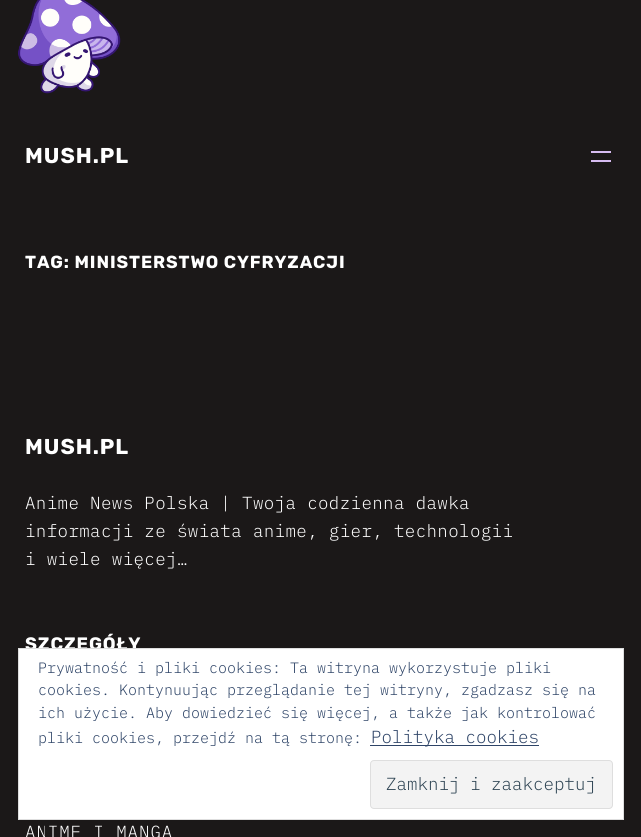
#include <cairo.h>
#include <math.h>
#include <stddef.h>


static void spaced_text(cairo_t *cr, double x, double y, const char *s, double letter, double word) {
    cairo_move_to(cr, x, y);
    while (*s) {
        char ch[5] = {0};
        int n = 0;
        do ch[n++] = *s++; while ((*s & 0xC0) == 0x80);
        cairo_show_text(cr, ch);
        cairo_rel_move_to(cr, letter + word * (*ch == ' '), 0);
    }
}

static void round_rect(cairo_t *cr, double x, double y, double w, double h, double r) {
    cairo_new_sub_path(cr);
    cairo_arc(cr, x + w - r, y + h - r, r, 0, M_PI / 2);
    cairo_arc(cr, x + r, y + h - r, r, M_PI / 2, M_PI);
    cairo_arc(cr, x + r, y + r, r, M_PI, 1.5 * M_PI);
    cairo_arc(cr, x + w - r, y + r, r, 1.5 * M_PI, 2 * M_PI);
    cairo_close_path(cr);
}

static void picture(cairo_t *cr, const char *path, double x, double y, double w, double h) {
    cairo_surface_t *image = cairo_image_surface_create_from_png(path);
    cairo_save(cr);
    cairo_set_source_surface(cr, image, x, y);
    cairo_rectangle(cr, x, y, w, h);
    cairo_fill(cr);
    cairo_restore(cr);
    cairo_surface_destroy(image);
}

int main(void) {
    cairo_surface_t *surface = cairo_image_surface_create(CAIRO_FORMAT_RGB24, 641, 837);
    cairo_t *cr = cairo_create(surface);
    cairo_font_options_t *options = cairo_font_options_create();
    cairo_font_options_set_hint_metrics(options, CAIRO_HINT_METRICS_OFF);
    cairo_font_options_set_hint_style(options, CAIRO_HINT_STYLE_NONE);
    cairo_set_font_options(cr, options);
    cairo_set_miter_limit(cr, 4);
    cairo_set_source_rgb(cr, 0.106, 0.094, 0.094);
    cairo_paint(cr);
    picture(cr, "img1.png", 18, 0, 103, 94);
    cairo_select_font_face(cr, "Rubik", CAIRO_FONT_SLANT_NORMAL, CAIRO_FONT_WEIGHT_BOLD);
    cairo_set_font_size(cr, 21.5);
    cairo_set_source_rgb(cr, 1, 1, 1);
    spaced_text(cr, 25, 163, "MUSH.PL", 1, 0);
    cairo_set_source_rgb(cr, 0.843, 0.737, 0.945);
    cairo_rectangle(cr, 591, 151, 20, 2);
    cairo_fill(cr);
    cairo_rectangle(cr, 591, 160, 20, 2);
    cairo_fill(cr);
    cairo_set_font_size(cr, 17.5);
    cairo_set_source_rgb(cr, 1, 1, 1);
    spaced_text(cr, 25, 268, "TAG: MINISTERSTWO CYFRYZACJI", 0.9, 0);
    cairo_set_font_size(cr, 21.5);
    spaced_text(cr, 25, 454, "MUSH.PL", 1, 0);
    cairo_select_font_face(cr, "IBM Plex Mono Light", CAIRO_FONT_SLANT_NORMAL, CAIRO_FONT_WEIGHT_NORMAL);
    cairo_set_font_size(cr, 17.5);
    spaced_text(cr, 25, 509, "Anime News Polska | Twoja codzienna dawka", 0.35, 0);
    spaced_text(cr, 25, 537, "informacji ze świata anime, gier, technologii", 0.35, 0);
    spaced_text(cr, 25, 565, "i wiele więcej…", 0.35, 0);
    cairo_select_font_face(cr, "Rubik", CAIRO_FONT_SLANT_NORMAL, CAIRO_FONT_WEIGHT_BOLD);
    cairo_set_font_size(cr, 18);
    spaced_text(cr, 25, 650, "SZCZEGÓŁY", 0.9, 0);
    cairo_select_font_face(cr, "IBM Plex Mono Light", CAIRO_FONT_SLANT_NORMAL, CAIRO_FONT_WEIGHT_NORMAL);
    cairo_set_font_size(cr, 17.5);
    spaced_text(cr, 25, 838, "ANIME I MANGA", 0.9, 0);
    cairo_rectangle(cr, 18.5, 648.5, 605, 171);
    cairo_fill_preserve(cr);
    cairo_set_source_rgb(cr, 0.871, 0.871, 0.871);
    cairo_set_line_width(cr, 1);
    cairo_stroke(cr);
    cairo_set_font_size(cr, 15);
    cairo_set_source_rgb(cr, 0.18, 0.267, 0.404);
    cairo_move_to(cr, 38, 673);
    cairo_show_text(cr, "Prywatność i pliki cookies: Ta witryna wykorzystuje pliki");
    cairo_move_to(cr, 38, 695);
    cairo_show_text(cr, "cookies. Kontynuując przeglądanie tej witryny, zgadzasz się na");
    cairo_move_to(cr, 38, 718);
    cairo_show_text(cr, "ich użycie. Aby dowiedzieć się więcej, a także jak kontrolować");
    cairo_move_to(cr, 38, 743);
    cairo_show_text(cr, "pliki cookies, przejdź na tą stronę:");
    cairo_rectangle(cr, 370, 745, 169, 1);
    cairo_fill(cr);
    cairo_set_font_size(cr, 17.5);
    cairo_move_to(cr, 371, 743);
    cairo_show_text(cr, "Polityka cookies");
    cairo_set_source_rgb(cr, 0.953, 0.953, 0.953);
    round_rect(cr, 370.5, 760.5, 242, 48, 3.5);
    cairo_fill_preserve(cr);
    cairo_set_source_rgb(cr, 0.871, 0.871, 0.871);
    cairo_stroke(cr);
    cairo_set_source_rgb(cr, 0.18, 0.267, 0.325);
    cairo_move_to(cr, 386, 790);
    cairo_show_text(cr, "Zamknij i zaakceptuj");
    cairo_surface_write_to_png(surface, "page.png");
    cairo_font_options_destroy(options);
    cairo_destroy(cr);
    cairo_surface_destroy(surface);
    return 0;
}
